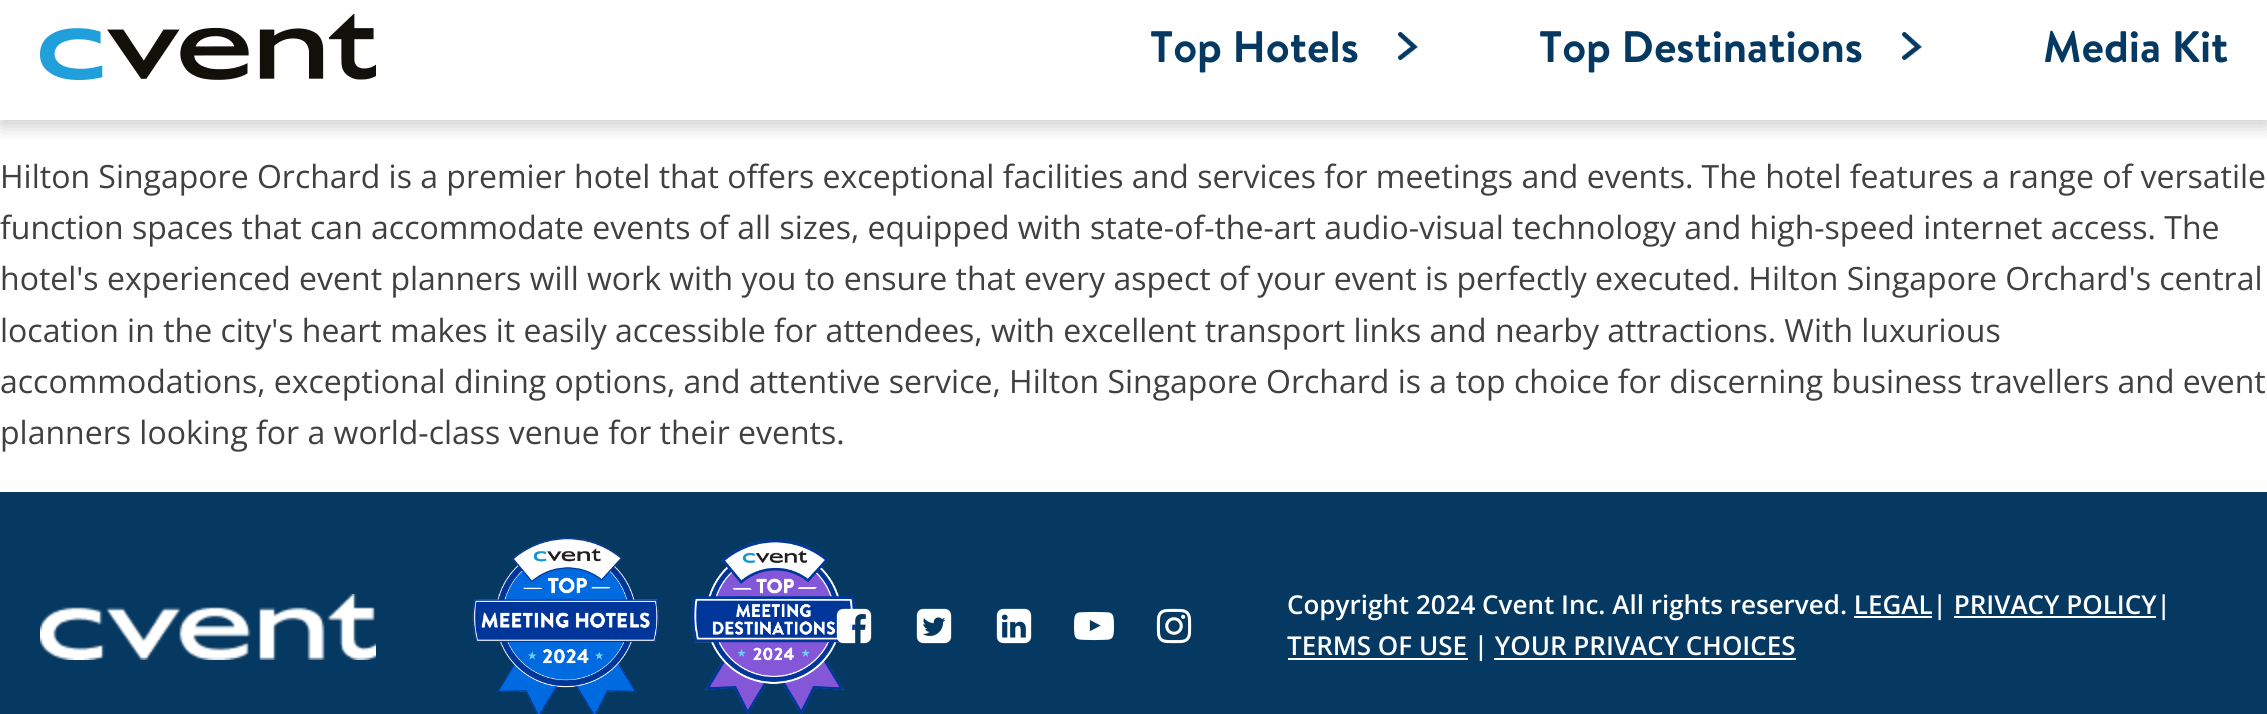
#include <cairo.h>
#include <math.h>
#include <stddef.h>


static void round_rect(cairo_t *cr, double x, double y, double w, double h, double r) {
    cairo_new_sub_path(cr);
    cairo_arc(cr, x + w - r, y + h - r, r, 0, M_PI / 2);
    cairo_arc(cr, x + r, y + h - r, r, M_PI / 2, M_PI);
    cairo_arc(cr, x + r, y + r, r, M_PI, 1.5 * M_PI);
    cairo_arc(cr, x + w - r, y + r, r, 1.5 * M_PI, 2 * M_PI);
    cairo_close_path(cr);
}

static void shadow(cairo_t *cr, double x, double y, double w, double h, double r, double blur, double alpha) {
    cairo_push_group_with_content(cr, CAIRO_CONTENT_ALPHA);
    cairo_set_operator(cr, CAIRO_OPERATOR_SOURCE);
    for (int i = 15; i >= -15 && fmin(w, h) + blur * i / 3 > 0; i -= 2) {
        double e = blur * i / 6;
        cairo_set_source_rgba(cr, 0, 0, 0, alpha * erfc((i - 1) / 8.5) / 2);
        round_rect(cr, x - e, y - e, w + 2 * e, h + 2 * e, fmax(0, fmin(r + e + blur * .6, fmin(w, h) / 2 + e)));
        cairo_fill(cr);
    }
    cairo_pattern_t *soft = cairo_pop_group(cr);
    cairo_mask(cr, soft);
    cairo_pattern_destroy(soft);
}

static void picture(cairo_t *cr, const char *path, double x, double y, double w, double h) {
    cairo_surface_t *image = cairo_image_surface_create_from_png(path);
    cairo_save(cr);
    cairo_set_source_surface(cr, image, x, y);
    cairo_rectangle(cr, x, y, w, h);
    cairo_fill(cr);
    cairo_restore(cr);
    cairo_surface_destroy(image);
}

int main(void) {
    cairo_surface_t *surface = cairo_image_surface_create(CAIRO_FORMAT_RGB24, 2267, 714);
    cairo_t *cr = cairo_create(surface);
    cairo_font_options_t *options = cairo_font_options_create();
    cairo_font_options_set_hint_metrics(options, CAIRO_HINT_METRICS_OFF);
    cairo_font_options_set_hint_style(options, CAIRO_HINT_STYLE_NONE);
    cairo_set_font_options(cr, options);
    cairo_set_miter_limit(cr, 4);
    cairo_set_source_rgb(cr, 1, 1, 1);
    cairo_paint(cr);
    cairo_save(cr);
    cairo_rectangle(cr, 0, 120, 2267, 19);
    cairo_clip(cr);
    cairo_set_source_rgb(cr, 0, 0, 0);
    shadow(cr, 0, -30, 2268, 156, 0, 10, 0.2);
    cairo_restore(cr);
    picture(cr, "img1.png", 40, 14, 336, 66);
    cairo_select_font_face(cr, "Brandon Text", CAIRO_FONT_SLANT_NORMAL, CAIRO_FONT_WEIGHT_BOLD);
    cairo_set_font_size(cr, 44);
    cairo_set_source_rgb(cr, 0.02, 0.224, 0.384);
    cairo_move_to(cr, 1150, 62);
    cairo_show_text(cr, "Top Hotels");
    picture(cr, "img2.png", 1398, 32, 20, 28);
    cairo_move_to(cr, 1539, 62);
    cairo_show_text(cr, "Top Destinations");
    picture(cr, "img2.png", 1902, 32, 20, 28);
    cairo_move_to(cr, 2043, 62);
    cairo_show_text(cr, "Media Kit");
    cairo_select_font_face(cr, "Open Sans", CAIRO_FONT_SLANT_NORMAL, CAIRO_FONT_WEIGHT_NORMAL);
    cairo_set_font_size(cr, 32);
    cairo_set_source_rgb(cr, 0.251, 0.251, 0.251);
    cairo_move_to(cr, 0, 188);
    cairo_show_text(cr, "Hilton Singapore Orchard is a premier hotel that offers exceptional facilities and services for meetings and events. The hotel features a range of versatile");
    cairo_move_to(cr, 0, 239);
    cairo_show_text(cr, "function spaces that can accommodate events of all sizes, equipped with state-of-the-art audio-visual technology and high-speed internet access. The");
    cairo_move_to(cr, 0, 290);
    cairo_show_text(cr, "hotel's experienced event planners will work with you to ensure that every aspect of your event is perfectly executed. Hilton Singapore Orchard's central");
    cairo_move_to(cr, 0, 342);
    cairo_show_text(cr, "location in the city's heart makes it easily accessible for attendees, with excellent transport links and nearby attractions. With luxurious");
    cairo_move_to(cr, 0, 393);
    cairo_show_text(cr, "accommodations, exceptional dining options, and attentive service, Hilton Singapore Orchard is a top choice for discerning business travellers and event");
    cairo_move_to(cr, 0, 444);
    cairo_show_text(cr, "planners looking for a world-class venue for their events.");
    cairo_set_source_rgb(cr, 0.02, 0.224, 0.384);
    cairo_rectangle(cr, 0, 492, 2267, 222);
    cairo_fill(cr);
    picture(cr, "img3.png", 40, 594, 336, 66);
    picture(cr, "img4.png", 472, 538, 187, 176);
    picture(cr, "img5.png", 691, 540, 165, 174);
    picture(cr, "img6.png", 836, 608, 36, 36);
    picture(cr, "img7.png", 916, 608, 36, 36);
    picture(cr, "img8.png", 996, 608, 36, 36);
    picture(cr, "img9.png", 1074, 611, 40, 30);
    picture(cr, "img10.png", 1156, 608, 36, 36);
    cairo_select_font_face(cr, "Open Sans SemiBold", CAIRO_FONT_SLANT_NORMAL, CAIRO_FONT_WEIGHT_NORMAL);
    cairo_set_font_size(cr, 26);
    cairo_set_source_rgb(cr, 1, 1, 1);
    cairo_move_to(cr, 1287, 614);
    cairo_show_text(cr, "Copyright 2024 Cvent Inc. All rights reserved. LEGAL| PRIVACY POLICY|");
    cairo_rectangle(cr, 1854, 616, 78, 2);
    cairo_fill(cr);
    cairo_rectangle(cr, 1954, 616, 202, 2);
    cairo_fill(cr);
    cairo_rectangle(cr, 1288, 658, 180, 2);
    cairo_fill(cr);
    cairo_move_to(cr, 1287, 655);
    cairo_show_text(cr, "TERMS OF USE | YOUR PRIVACY CHOICES");
    cairo_rectangle(cr, 1494, 658, 302, 2);
    cairo_fill(cr);
    cairo_surface_write_to_png(surface, "page.png");
    cairo_font_options_destroy(options);
    cairo_destroy(cr);
    cairo_surface_destroy(surface);
    return 0;
}
